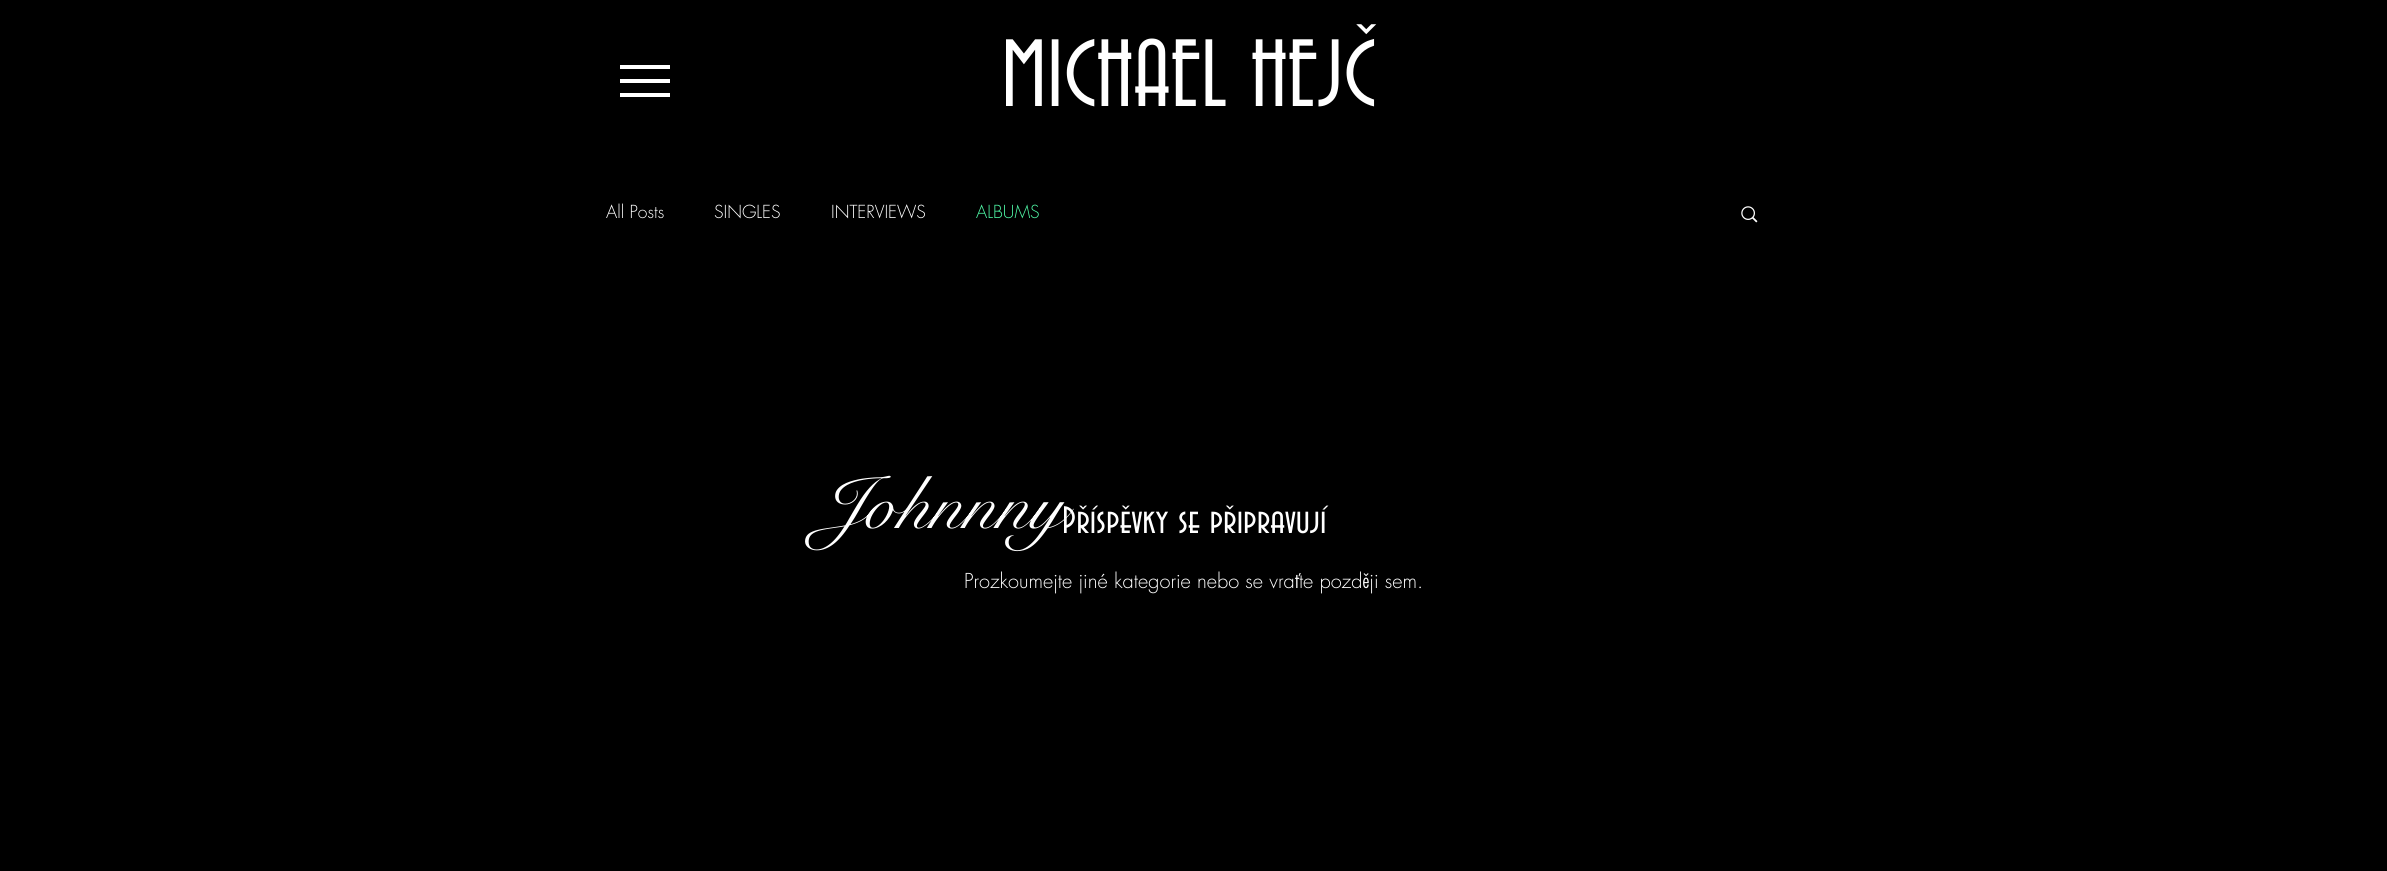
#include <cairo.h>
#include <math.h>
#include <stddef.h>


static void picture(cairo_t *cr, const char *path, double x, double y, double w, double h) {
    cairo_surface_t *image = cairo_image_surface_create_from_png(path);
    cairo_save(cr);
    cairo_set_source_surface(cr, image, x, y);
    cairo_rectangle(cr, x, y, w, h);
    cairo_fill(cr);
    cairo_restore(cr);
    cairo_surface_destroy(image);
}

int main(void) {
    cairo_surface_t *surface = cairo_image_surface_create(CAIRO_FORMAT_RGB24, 2387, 871);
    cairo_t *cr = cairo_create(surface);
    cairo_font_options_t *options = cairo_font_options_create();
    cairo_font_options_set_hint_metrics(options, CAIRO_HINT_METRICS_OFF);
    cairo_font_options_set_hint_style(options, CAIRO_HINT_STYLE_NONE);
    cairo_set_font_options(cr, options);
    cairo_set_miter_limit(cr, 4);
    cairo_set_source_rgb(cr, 0, 0, 0);
    cairo_paint(cr);
    cairo_set_source_rgb(cr, 1, 1, 1);
    cairo_rectangle(cr, 620, 93, 50, 4);
    cairo_fill(cr);
    cairo_rectangle(cr, 620, 65, 50, 4);
    cairo_fill(cr);
    cairo_rectangle(cr, 620, 79, 50, 4);
    cairo_fill(cr);
    cairo_select_font_face(cr, "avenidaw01", CAIRO_FONT_SLANT_NORMAL, CAIRO_FONT_WEIGHT_NORMAL);
    cairo_set_font_size(cr, 100);
    cairo_move_to(cr, 1001, 106);
    cairo_show_text(cr, "MICHAEL HEJČ");
    cairo_select_font_face(cr, "futura Light", CAIRO_FONT_SLANT_NORMAL, CAIRO_FONT_WEIGHT_NORMAL);
    cairo_set_font_size(cr, 17.5);
    cairo_move_to(cr, 606, 218);
    cairo_show_text(cr, "All Posts");
    cairo_move_to(cr, 714, 218);
    cairo_show_text(cr, "SINGLES");
    cairo_move_to(cr, 831, 218);
    cairo_show_text(cr, "INTERVIEWS");
    cairo_set_source_rgb(cr, 0.314, 0.98, 0.659);
    cairo_move_to(cr, 976, 218);
    cairo_show_text(cr, "ALBUMS");
    picture(cr, "img1.png", 1741, 206, 17, 17);
    cairo_select_font_face(cr, "avenidaw01", CAIRO_FONT_SLANT_NORMAL, CAIRO_FONT_WEIGHT_NORMAL);
    cairo_set_font_size(cr, 40);
    cairo_set_source_rgb(cr, 1, 1, 1);
    cairo_move_to(cr, 1062, 533);
    cairo_show_text(cr, "Příspěvky se připravují");
    cairo_select_font_face(cr, "futura Light", CAIRO_FONT_SLANT_NORMAL, CAIRO_FONT_WEIGHT_NORMAL);
    cairo_set_font_size(cr, 20);
    cairo_move_to(cr, 964, 588);
    cairo_show_text(cr, "Prozkoumejte jiné kategorie nebo se vraťte později sem.");
    cairo_select_font_face(cr, "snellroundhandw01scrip", CAIRO_FONT_SLANT_NORMAL, CAIRO_FONT_WEIGHT_NORMAL);
    cairo_set_font_size(cr, 75);
    cairo_move_to(cr, 819, 528);
    cairo_show_text(cr, "Johnnny");
    cairo_surface_write_to_png(surface, "page.png");
    cairo_font_options_destroy(options);
    cairo_destroy(cr);
    cairo_surface_destroy(surface);
    return 0;
}
